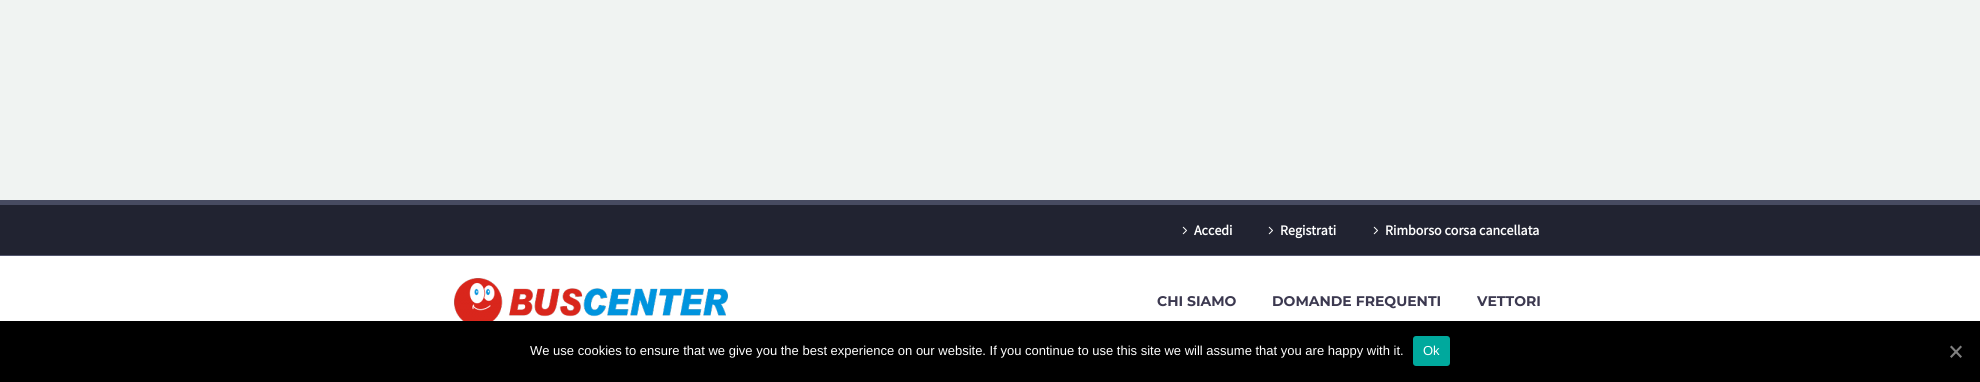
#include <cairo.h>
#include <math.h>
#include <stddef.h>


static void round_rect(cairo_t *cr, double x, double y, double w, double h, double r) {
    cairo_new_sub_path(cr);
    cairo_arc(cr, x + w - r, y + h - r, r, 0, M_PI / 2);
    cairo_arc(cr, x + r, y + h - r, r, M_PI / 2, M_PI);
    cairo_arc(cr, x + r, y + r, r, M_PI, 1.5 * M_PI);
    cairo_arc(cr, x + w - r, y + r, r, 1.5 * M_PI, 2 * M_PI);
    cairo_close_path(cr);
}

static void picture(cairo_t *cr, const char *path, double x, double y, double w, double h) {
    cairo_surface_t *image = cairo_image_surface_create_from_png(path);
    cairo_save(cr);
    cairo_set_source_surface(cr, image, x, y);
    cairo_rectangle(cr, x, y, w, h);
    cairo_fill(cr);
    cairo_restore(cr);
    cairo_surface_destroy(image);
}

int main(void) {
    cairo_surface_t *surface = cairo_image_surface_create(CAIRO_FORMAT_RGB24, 1980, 382);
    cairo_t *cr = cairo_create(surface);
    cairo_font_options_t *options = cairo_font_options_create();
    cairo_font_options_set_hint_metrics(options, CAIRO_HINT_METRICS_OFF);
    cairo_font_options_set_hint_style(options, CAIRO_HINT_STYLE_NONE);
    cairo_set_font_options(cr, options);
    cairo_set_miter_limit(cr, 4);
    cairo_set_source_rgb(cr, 0.941, 0.953, 0.949);
    cairo_paint(cr);
    cairo_set_source_rgb(cr, 1, 1, 1);
    cairo_rectangle(cr, 0, 256, 1980, 65);
    cairo_fill(cr);
    cairo_set_source_rgb(cr, 0.129, 0.137, 0.192);
    cairo_rectangle(cr, 0, 205, 1980, 50);
    cairo_fill(cr);
    cairo_set_source_rgb(cr, 0.278, 0.294, 0.38);
    cairo_rectangle(cr, 0, 200, 1980, 5);
    cairo_fill(cr);
    cairo_set_source_rgb(cr, 0.318, 0.329, 0.424);
    cairo_rectangle(cr, 0, 255, 1980, 1);
    cairo_fill(cr);
    picture(cr, "img1.png", 1182, 226, 5, 9);
    cairo_select_font_face(cr, "Source Sans Pro", CAIRO_FONT_SLANT_NORMAL, CAIRO_FONT_WEIGHT_BOLD);
    cairo_set_font_size(cr, 14);
    cairo_set_source_rgb(cr, 1, 1, 1);
    cairo_move_to(cr, 1194, 235);
    cairo_show_text(cr, "Accedi");
    picture(cr, "img1.png", 1268, 226, 5, 9);
    cairo_move_to(cr, 1280, 235);
    cairo_show_text(cr, "Registrati");
    picture(cr, "img1.png", 1373, 226, 5, 9);
    cairo_move_to(cr, 1385, 235);
    cairo_show_text(cr, "Rimborso corsa cancellata");
    picture(cr, "img2.png", 454, 278, 274, 43);
    cairo_select_font_face(cr, "Montserrat", CAIRO_FONT_SLANT_NORMAL, CAIRO_FONT_WEIGHT_BOLD);
    cairo_set_source_rgb(cr, 0.235, 0.224, 0.314);
    cairo_move_to(cr, 1157, 306);
    cairo_show_text(cr, "CHI SIAMO");
    cairo_move_to(cr, 1272, 306);
    cairo_show_text(cr, "DOMANDE FREQUENTI");
    cairo_move_to(cr, 1477, 306);
    cairo_show_text(cr, "VETTORI");
    cairo_set_source_rgb(cr, 0, 0, 0);
    cairo_rectangle(cr, 0, 321, 1980, 61);
    cairo_fill(cr);
    cairo_select_font_face(cr, "Liberation Sans", CAIRO_FONT_SLANT_NORMAL, CAIRO_FONT_WEIGHT_NORMAL);
    cairo_set_font_size(cr, 13);
    cairo_set_source_rgb(cr, 1, 1, 1);
    cairo_move_to(cr, 530, 355);
    cairo_show_text(cr, "We use cookies to ensure that we give you the best experience on our website. If you continue to use this site we will assume that you are happy with it.");
    cairo_set_source_rgb(cr, 0, 0.663, 0.616);
    round_rect(cr, 1413, 336, 37, 30, 3);
    cairo_fill(cr);
    cairo_set_source_rgb(cr, 1, 1, 1);
    cairo_move_to(cr, 1423, 355);
    cairo_show_text(cr, "Ok");
    cairo_set_source_rgb(cr, 0.502, 0.502, 0.502);
    cairo_new_path(cr);
    cairo_move_to(cr, 1960.5, 345.5);
    cairo_line_to(cr, 1962, 347);
    cairo_line_to(cr, 1951.5, 358);
    cairo_line_to(cr, 1950, 356.5);
    cairo_close_path(cr);
    cairo_fill(cr);
    cairo_new_path(cr);
    cairo_move_to(cr, 1950, 347);
    cairo_line_to(cr, 1951.5, 345.5);
    cairo_line_to(cr, 1962, 356.5);
    cairo_line_to(cr, 1960.5, 358);
    cairo_close_path(cr);
    cairo_fill(cr);
    cairo_surface_write_to_png(surface, "page.png");
    cairo_font_options_destroy(options);
    cairo_destroy(cr);
    cairo_surface_destroy(surface);
    return 0;
}
